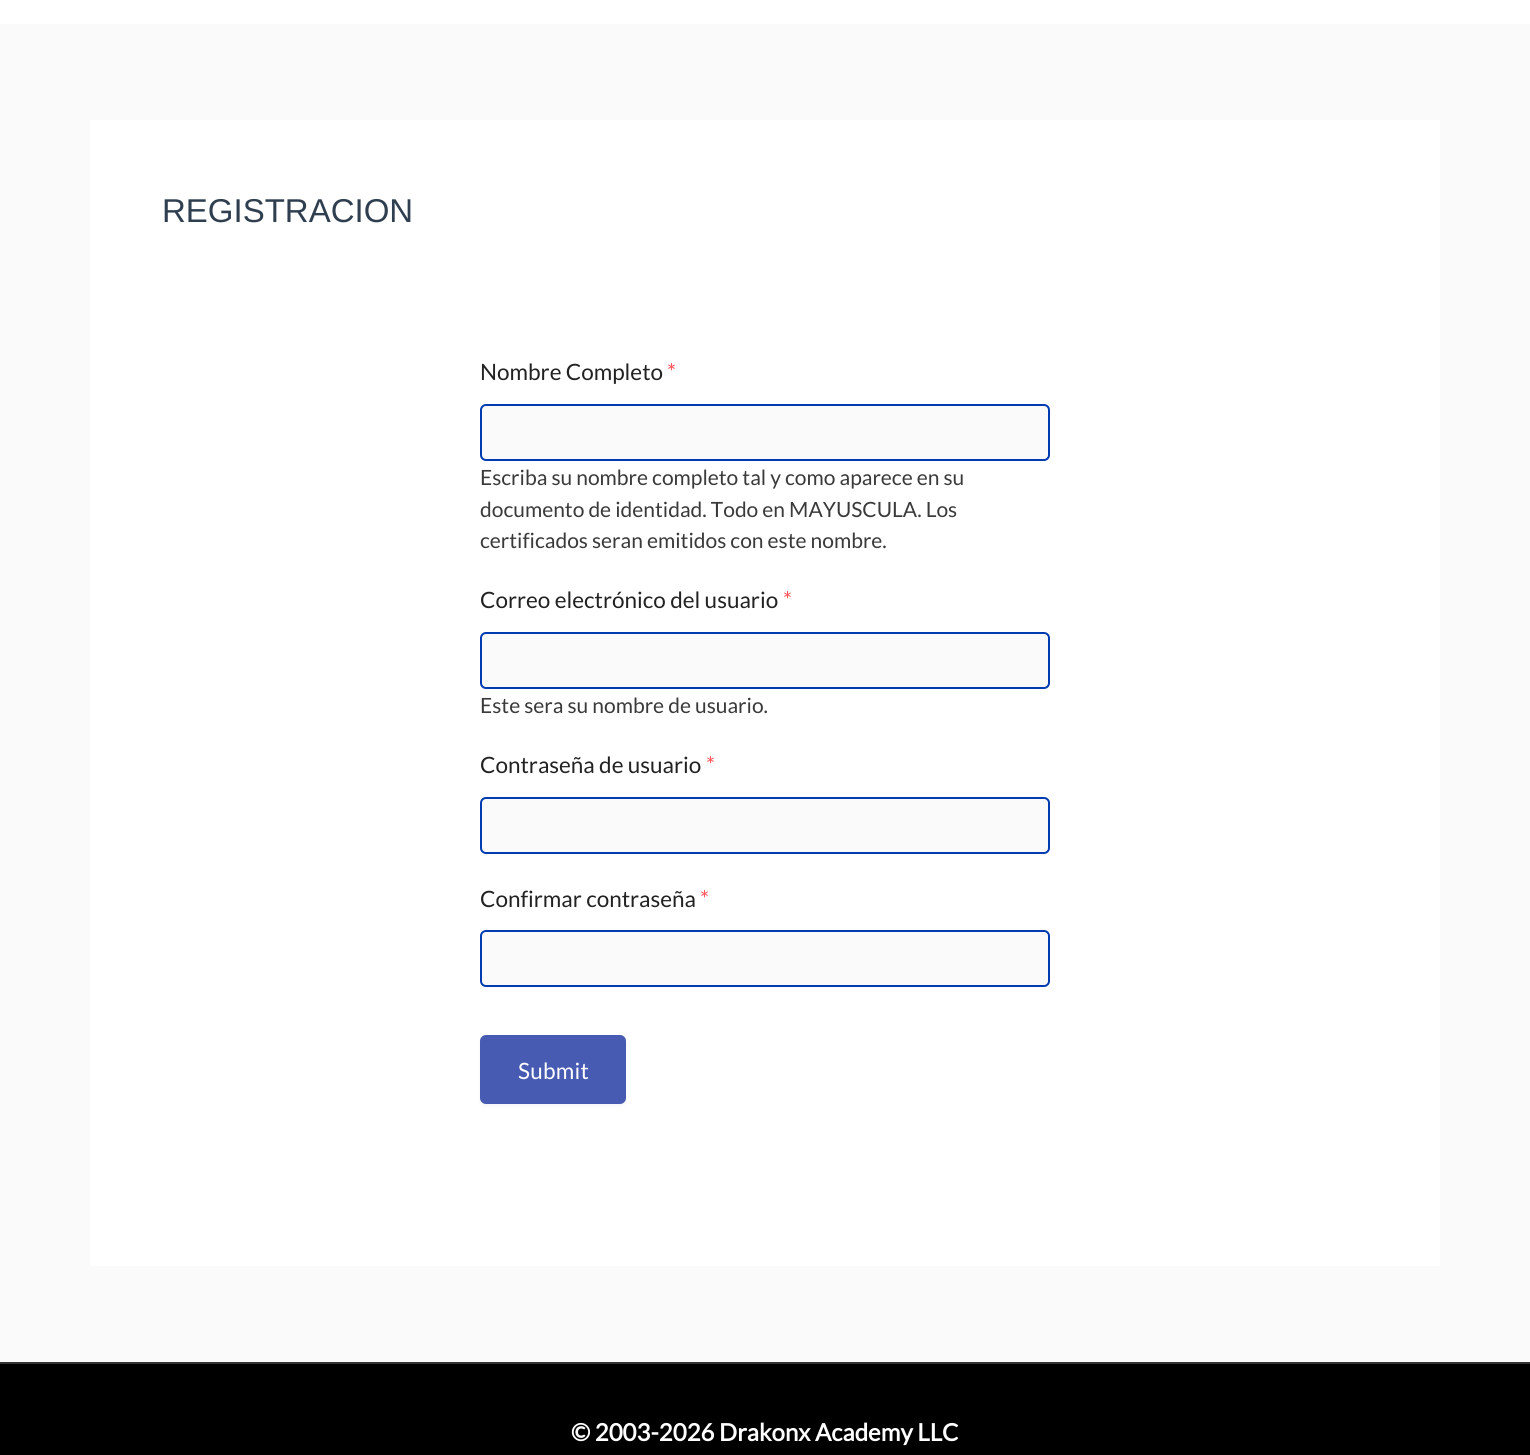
#include <cairo.h>
#include <math.h>
#include <stddef.h>


static void spaced_text(cairo_t *cr, double x, double y, const char *s, double letter, double word) {
    cairo_move_to(cr, x, y);
    while (*s) {
        char ch[5] = {0};
        int n = 0;
        do ch[n++] = *s++; while ((*s & 0xC0) == 0x80);
        cairo_show_text(cr, ch);
        cairo_rel_move_to(cr, letter + word * (*ch == ' '), 0);
    }
}

static void round_rect(cairo_t *cr, double x, double y, double w, double h, double r) {
    cairo_new_sub_path(cr);
    cairo_arc(cr, x + w - r, y + h - r, r, 0, M_PI / 2);
    cairo_arc(cr, x + r, y + h - r, r, M_PI / 2, M_PI);
    cairo_arc(cr, x + r, y + r, r, M_PI, 1.5 * M_PI);
    cairo_arc(cr, x + w - r, y + r, r, 1.5 * M_PI, 2 * M_PI);
    cairo_close_path(cr);
}

static void shadow(cairo_t *cr, double x, double y, double w, double h, double r, double blur, double alpha) {
    cairo_push_group_with_content(cr, CAIRO_CONTENT_ALPHA);
    cairo_set_operator(cr, CAIRO_OPERATOR_SOURCE);
    for (int i = 15; i >= -15 && fmin(w, h) + blur * i / 3 > 0; i -= 2) {
        double e = blur * i / 6;
        cairo_set_source_rgba(cr, 0, 0, 0, alpha * erfc((i - 1) / 8.5) / 2);
        round_rect(cr, x - e, y - e, w + 2 * e, h + 2 * e, fmax(0, fmin(r + e + blur * .6, fmin(w, h) / 2 + e)));
        cairo_fill(cr);
    }
    cairo_pattern_t *soft = cairo_pop_group(cr);
    cairo_mask(cr, soft);
    cairo_pattern_destroy(soft);
}

int main(void) {
    cairo_surface_t *surface = cairo_image_surface_create(CAIRO_FORMAT_RGB24, 1530, 1455);
    cairo_t *cr = cairo_create(surface);
    cairo_font_options_t *options = cairo_font_options_create();
    cairo_font_options_set_hint_metrics(options, CAIRO_HINT_METRICS_OFF);
    cairo_font_options_set_hint_style(options, CAIRO_HINT_STYLE_NONE);
    cairo_set_font_options(cr, options);
    cairo_set_miter_limit(cr, 4);
    cairo_set_source_rgb(cr, 0.98, 0.98, 0.98);
    cairo_paint(cr);
    cairo_set_source_rgb(cr, 1, 1, 1);
    cairo_rectangle(cr, 0, 0, 1530, 24);
    cairo_fill(cr);
    cairo_rectangle(cr, 90, 120, 1350, 1146);
    cairo_fill(cr);
    cairo_select_font_face(cr, "Liberation Sans", CAIRO_FONT_SLANT_NORMAL, CAIRO_FONT_WEIGHT_NORMAL);
    cairo_set_font_size(cr, 33);
    cairo_set_source_rgb(cr, 0.184, 0.247, 0.314);
    cairo_move_to(cr, 162, 222);
    cairo_show_text(cr, "REGISTRACION");
    cairo_select_font_face(cr, "Lato", CAIRO_FONT_SLANT_NORMAL, CAIRO_FONT_WEIGHT_NORMAL);
    cairo_set_font_size(cr, 22.5);
    cairo_set_source_rgb(cr, 0.133, 0.133, 0.133);
    cairo_move_to(cr, 480, 380);
    cairo_show_text(cr, "Nombre Completo");
    cairo_set_source_rgb(cr, 1, 0.31, 0.333);
    cairo_move_to(cr, 667, 380);
    cairo_show_text(cr, "*");
    cairo_set_source_rgb(cr, 0.98, 0.98, 0.98);
    round_rect(cr, 481, 405, 568, 55, 5);
    cairo_fill_preserve(cr);
    cairo_set_source_rgb(cr, 0, 0.231, 0.694);
    cairo_stroke(cr);
    cairo_set_font_size(cr, 21);
    cairo_set_source_rgb(cr, 0.227, 0.227, 0.227);
    cairo_move_to(cr, 480, 485);
    cairo_show_text(cr, "Escriba su nombre completo tal y como aparece en su");
    cairo_move_to(cr, 480, 517);
    cairo_show_text(cr, "documento de identidad. Todo en MAYUSCULA. Los");
    cairo_move_to(cr, 480, 548);
    cairo_show_text(cr, "certificados seran emitidos con este nombre.");
    cairo_set_font_size(cr, 22.5);
    cairo_set_source_rgb(cr, 0.133, 0.133, 0.133);
    cairo_move_to(cr, 480, 608);
    cairo_show_text(cr, "Correo electrónico del usuario");
    cairo_set_source_rgb(cr, 1, 0.31, 0.333);
    cairo_move_to(cr, 783, 608);
    cairo_show_text(cr, "*");
    cairo_set_source_rgb(cr, 0.98, 0.98, 0.98);
    round_rect(cr, 481, 633, 568, 55, 5);
    cairo_fill_preserve(cr);
    cairo_set_source_rgb(cr, 0, 0.231, 0.694);
    cairo_stroke(cr);
    cairo_set_font_size(cr, 21);
    cairo_set_source_rgb(cr, 0.227, 0.227, 0.227);
    cairo_move_to(cr, 480, 713);
    cairo_show_text(cr, "Este sera su nombre de usuario.");
    cairo_set_font_size(cr, 22.5);
    cairo_set_source_rgb(cr, 0.133, 0.133, 0.133);
    cairo_move_to(cr, 480, 773);
    cairo_show_text(cr, "Contraseña de usuario");
    cairo_set_source_rgb(cr, 1, 0.31, 0.333);
    cairo_move_to(cr, 706, 773);
    cairo_show_text(cr, "*");
    cairo_set_source_rgb(cr, 0.98, 0.98, 0.98);
    round_rect(cr, 481, 798, 568, 55, 5);
    cairo_fill_preserve(cr);
    cairo_set_source_rgb(cr, 0, 0.231, 0.694);
    cairo_stroke(cr);
    cairo_set_source_rgb(cr, 0.133, 0.133, 0.133);
    cairo_move_to(cr, 480, 907);
    cairo_show_text(cr, "Confirmar contraseña");
    cairo_set_source_rgb(cr, 1, 0.31, 0.333);
    cairo_move_to(cr, 700, 907);
    cairo_show_text(cr, "*");
    cairo_set_source_rgb(cr, 0.98, 0.98, 0.98);
    round_rect(cr, 481, 931, 568, 55, 5);
    cairo_fill_preserve(cr);
    cairo_set_source_rgb(cr, 0, 0.231, 0.694);
    cairo_stroke(cr);
    cairo_set_source_rgb(cr, 0.714, 0.733, 0.812);
    shadow(cr, 480, 1037, 146, 69, 6, 2, 0.15);
    cairo_set_source_rgb(cr, 0.278, 0.357, 0.698);
    round_rect(cr, 481, 1036, 144, 67, 5);
    cairo_fill_preserve(cr);
    cairo_stroke(cr);
    cairo_set_source_rgb(cr, 1, 1, 1);
    spaced_text(cr, 518, 1079, "Submit", 0.25, 0);
    cairo_set_source_rgb(cr, 0, 0, 0);
    cairo_rectangle(cr, 0, 1364, 1530, 91);
    cairo_fill(cr);
    cairo_set_source_rgb(cr, 0.2, 0.2, 0.2);
    cairo_rectangle(cr, 0, 1362, 1530, 2);
    cairo_fill(cr);
    cairo_select_font_face(cr, "Lato", CAIRO_FONT_SLANT_NORMAL, CAIRO_FONT_WEIGHT_BOLD);
    cairo_set_font_size(cr, 24);
    cairo_set_source_rgb(cr, 1, 1, 1);
    cairo_move_to(cr, 571, 1441);
    cairo_show_text(cr, "© 2003-2026 Drakonx Academy LLC");
    cairo_surface_write_to_png(surface, "page.png");
    cairo_font_options_destroy(options);
    cairo_destroy(cr);
    cairo_surface_destroy(surface);
    return 0;
}
